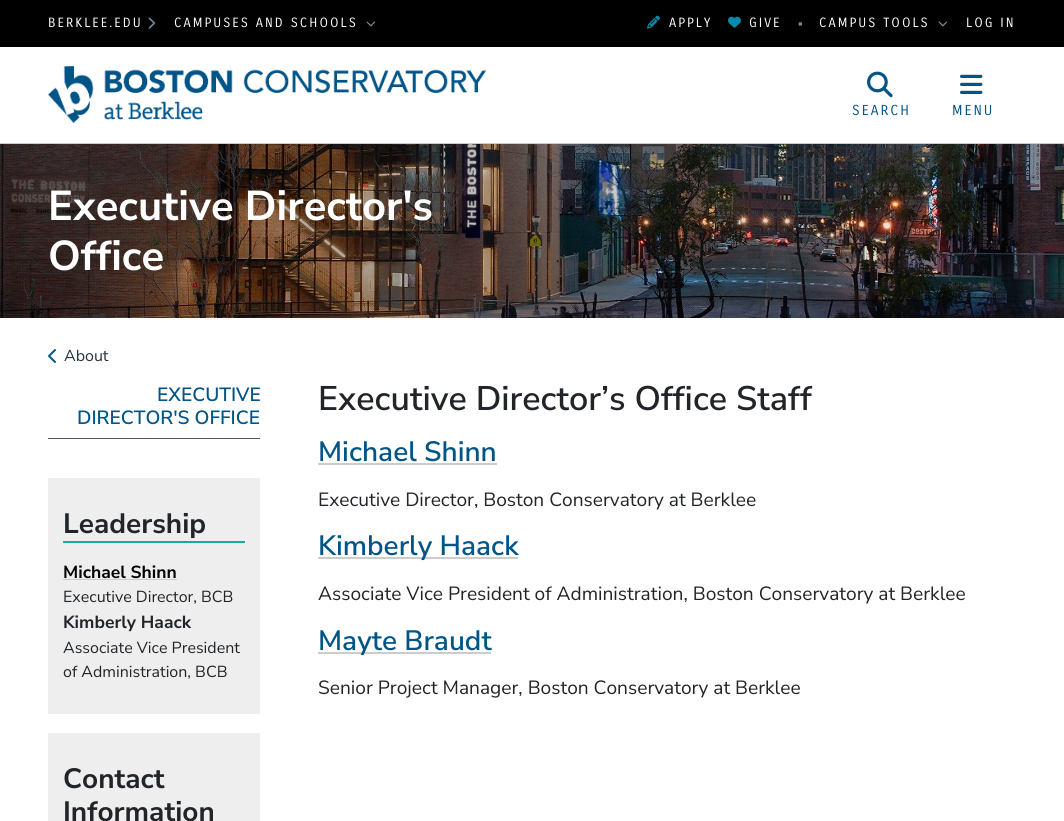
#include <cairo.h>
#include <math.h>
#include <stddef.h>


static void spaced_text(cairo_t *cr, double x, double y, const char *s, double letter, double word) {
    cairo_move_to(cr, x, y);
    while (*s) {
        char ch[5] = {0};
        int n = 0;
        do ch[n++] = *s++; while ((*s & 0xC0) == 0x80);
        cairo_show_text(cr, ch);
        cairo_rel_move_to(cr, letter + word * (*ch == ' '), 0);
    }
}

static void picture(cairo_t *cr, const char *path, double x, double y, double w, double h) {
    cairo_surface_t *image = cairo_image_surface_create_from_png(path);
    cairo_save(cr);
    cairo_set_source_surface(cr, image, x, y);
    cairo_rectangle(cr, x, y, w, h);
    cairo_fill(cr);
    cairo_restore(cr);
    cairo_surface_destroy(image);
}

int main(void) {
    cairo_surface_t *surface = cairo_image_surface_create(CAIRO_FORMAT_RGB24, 1064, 821);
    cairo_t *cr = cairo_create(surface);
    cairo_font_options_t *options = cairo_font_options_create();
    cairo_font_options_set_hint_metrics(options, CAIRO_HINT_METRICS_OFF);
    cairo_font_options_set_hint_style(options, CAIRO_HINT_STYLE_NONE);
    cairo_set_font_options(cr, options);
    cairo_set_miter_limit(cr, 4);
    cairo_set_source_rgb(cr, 1, 1, 1);
    cairo_paint(cr);
    cairo_set_source_rgb(cr, 0, 0, 0);
    cairo_rectangle(cr, 0, 0, 1064, 47);
    cairo_fill(cr);
    cairo_select_font_face(cr, "Carrois Gothic", CAIRO_FONT_SLANT_NORMAL, CAIRO_FONT_WEIGHT_NORMAL);
    cairo_set_font_size(cr, 13);
    cairo_set_source_rgb(cr, 1, 1, 1);
    spaced_text(cr, 48, 27, "BERKLEE.EDU", 2, 0);
    picture(cr, "img1.png", 148, 17, 7, 12);
    spaced_text(cr, 174, 27, "CAMPUSES AND SCHOOLS", 2, 0);
    picture(cr, "img2.png", 366, 21, 9, 6);
    picture(cr, "img3.png", 647, 15, 13, 14);
    spaced_text(cr, 669, 27, "APPLY", 2, 0);
    picture(cr, "img4.png", 728, 16, 13, 12);
    spaced_text(cr, 749, 27, "GIVE", 2, 0);
    cairo_select_font_face(cr, "Liberation Sans", CAIRO_FONT_SLANT_NORMAL, CAIRO_FONT_WEIGHT_NORMAL);
    cairo_set_source_rgb(cr, 0.482, 0.545, 0.588);
    cairo_move_to(cr, 798, 28);
    cairo_show_text(cr, "▪");
    cairo_select_font_face(cr, "Carrois Gothic", CAIRO_FONT_SLANT_NORMAL, CAIRO_FONT_WEIGHT_NORMAL);
    cairo_set_source_rgb(cr, 1, 1, 1);
    spaced_text(cr, 819, 27, "CAMPUS TOOLS", 2, 0);
    picture(cr, "img2.png", 938, 21, 9, 6);
    spaced_text(cr, 966, 27, "LOG IN", 2, 0);
    cairo_set_source_rgb(cr, 0.8, 0.8, 0.8);
    cairo_rectangle(cr, 0, 143, 1064, 1);
    cairo_fill(cr);
    picture(cr, "img5.png", 48, 66, 439, 58);
    picture(cr, "img6.png", 867, 71, 26, 27);
    cairo_set_font_size(cr, 14);
    cairo_set_source_rgb(cr, 0, 0.333, 0.529);
    spaced_text(cr, 852, 115, "SEARCH", 2, 0);
    picture(cr, "img7.png", 960, 74, 23, 20);
    spaced_text(cr, 952, 115, "MENU", 2, 0);
    picture(cr, "img8.png", 0, 144, 1064, 174);
    cairo_select_font_face(cr, "Nunito Sans ExtraLight", CAIRO_FONT_SLANT_NORMAL, CAIRO_FONT_WEIGHT_NORMAL);
    cairo_set_font_size(cr, 41.75);
    cairo_set_source_rgb(cr, 1, 1, 1);
    cairo_move_to(cr, 48, 220);
    cairo_show_text(cr, "Executive Director's");
    cairo_move_to(cr, 48, 270);
    cairo_show_text(cr, "Office");
    picture(cr, "img9.png", 48, 349, 8, 14);
    cairo_select_font_face(cr, "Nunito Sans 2 ExtraLight", CAIRO_FONT_SLANT_NORMAL, CAIRO_FONT_WEIGHT_NORMAL);
    cairo_set_font_size(cr, 16);
    cairo_set_source_rgb(cr, 0.145, 0.208, 0.235);
    cairo_move_to(cr, 64, 361);
    cairo_show_text(cr, "About");
    cairo_set_source_rgb(cr, 0.298, 0.349, 0.376);
    cairo_rectangle(cr, 48, 438, 212, 1);
    cairo_fill(cr);
    cairo_select_font_face(cr, "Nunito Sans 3 ExtraLight", CAIRO_FONT_SLANT_NORMAL, CAIRO_FONT_WEIGHT_NORMAL);
    cairo_set_font_size(cr, 19.15);
    cairo_set_source_rgb(cr, 0, 0.333, 0.529);
    cairo_move_to(cr, 157, 401);
    cairo_show_text(cr, "EXECUTIVE");
    cairo_move_to(cr, 77, 424);
    cairo_show_text(cr, "DIRECTOR'S OFFICE");
    cairo_set_source_rgb(cr, 0.933, 0.933, 0.933);
    cairo_rectangle(cr, 48, 478, 212, 236);
    cairo_fill(cr);
    cairo_set_source_rgb(cr, 0.086, 0.675, 0.588);
    cairo_rectangle(cr, 63, 541, 182, 2);
    cairo_fill(cr);
    cairo_select_font_face(cr, "Nunito Sans ExtraLight", CAIRO_FONT_SLANT_NORMAL, CAIRO_FONT_WEIGHT_NORMAL);
    cairo_set_font_size(cr, 28);
    cairo_set_source_rgb(cr, 0.129, 0.145, 0.161);
    cairo_move_to(cr, 63, 533);
    cairo_show_text(cr, "Leadership");
    cairo_set_font_size(cr, 17.5);
    cairo_set_source_rgb(cr, 0, 0, 0);
    cairo_move_to(cr, 63, 578);
    cairo_show_text(cr, "Michael Shinn");
    cairo_set_source_rgb(cr, 0.8, 0.8, 0.8);
    cairo_rectangle(cr, 63, 579, 114, 1);
    cairo_fill(cr);
    cairo_select_font_face(cr, "Nunito Sans 2 ExtraLight", CAIRO_FONT_SLANT_NORMAL, CAIRO_FONT_WEIGHT_NORMAL);
    cairo_set_font_size(cr, 16);
    cairo_set_source_rgb(cr, 0.129, 0.145, 0.161);
    cairo_move_to(cr, 63, 602);
    cairo_show_text(cr, "Executive Director, BCB");
    cairo_select_font_face(cr, "Nunito Sans ExtraLight", CAIRO_FONT_SLANT_NORMAL, CAIRO_FONT_WEIGHT_NORMAL);
    cairo_set_font_size(cr, 17.5);
    cairo_move_to(cr, 63, 628);
    cairo_show_text(cr, "Kimberly Haack");
    cairo_select_font_face(cr, "Nunito Sans 2 ExtraLight", CAIRO_FONT_SLANT_NORMAL, CAIRO_FONT_WEIGHT_NORMAL);
    cairo_set_font_size(cr, 16);
    cairo_move_to(cr, 63, 653);
    cairo_show_text(cr, "Associate Vice President");
    cairo_move_to(cr, 63, 677);
    cairo_show_text(cr, "of Administration, BCB");
    cairo_set_source_rgb(cr, 0.933, 0.933, 0.933);
    cairo_rectangle(cr, 48, 733, 212, 88);
    cairo_fill(cr);
    cairo_select_font_face(cr, "Nunito Sans ExtraLight", CAIRO_FONT_SLANT_NORMAL, CAIRO_FONT_WEIGHT_NORMAL);
    cairo_set_font_size(cr, 28);
    cairo_set_source_rgb(cr, 0.129, 0.145, 0.161);
    cairo_move_to(cr, 63, 788);
    cairo_show_text(cr, "Contact");
    cairo_move_to(cr, 63, 821);
    cairo_show_text(cr, "Information");
    cairo_select_font_face(cr, "Nunito Sans 3 ExtraLight", CAIRO_FONT_SLANT_NORMAL, CAIRO_FONT_WEIGHT_NORMAL);
    cairo_set_font_size(cr, 34.1);
    cairo_move_to(cr, 318, 410);
    cairo_show_text(cr, "Executive Director’s Office Staff");
    cairo_set_font_size(cr, 28);
    cairo_set_source_rgb(cr, 0, 0.333, 0.529);
    cairo_move_to(cr, 318, 461);
    cairo_show_text(cr, "Michael Shinn");
    cairo_set_source_rgb(cr, 0.8, 0.8, 0.8);
    cairo_rectangle(cr, 318, 463, 179, 2);
    cairo_fill(cr);
    cairo_select_font_face(cr, "Nunito Sans 2 ExtraLight", CAIRO_FONT_SLANT_NORMAL, CAIRO_FONT_WEIGHT_NORMAL);
    cairo_set_font_size(cr, 19.15);
    cairo_set_source_rgb(cr, 0.129, 0.145, 0.161);
    cairo_move_to(cr, 318, 506);
    cairo_show_text(cr, "Executive Director, Boston Conservatory at Berklee");
    cairo_set_source_rgb(cr, 0.8, 0.8, 0.8);
    cairo_rectangle(cr, 318, 557, 200, 2);
    cairo_fill(cr);
    cairo_select_font_face(cr, "Nunito Sans 3 ExtraLight", CAIRO_FONT_SLANT_NORMAL, CAIRO_FONT_WEIGHT_NORMAL);
    cairo_set_font_size(cr, 28);
    cairo_set_source_rgb(cr, 0, 0.333, 0.529);
    cairo_move_to(cr, 318, 555);
    cairo_show_text(cr, "Kimberly Haack");
    cairo_select_font_face(cr, "Nunito Sans 2 ExtraLight", CAIRO_FONT_SLANT_NORMAL, CAIRO_FONT_WEIGHT_NORMAL);
    cairo_set_font_size(cr, 19.15);
    cairo_set_source_rgb(cr, 0.129, 0.145, 0.161);
    cairo_move_to(cr, 318, 600);
    cairo_show_text(cr, "Associate Vice President of Administration, Boston Conservatory at Berklee");
    cairo_set_source_rgb(cr, 0.8, 0.8, 0.8);
    cairo_rectangle(cr, 318, 652, 173, 2);
    cairo_fill(cr);
    cairo_select_font_face(cr, "Nunito Sans 3 ExtraLight", CAIRO_FONT_SLANT_NORMAL, CAIRO_FONT_WEIGHT_NORMAL);
    cairo_set_font_size(cr, 28);
    cairo_set_source_rgb(cr, 0, 0.333, 0.529);
    cairo_move_to(cr, 318, 650);
    cairo_show_text(cr, "Mayte Braudt");
    cairo_select_font_face(cr, "Nunito Sans 2 ExtraLight", CAIRO_FONT_SLANT_NORMAL, CAIRO_FONT_WEIGHT_NORMAL);
    cairo_set_font_size(cr, 19.15);
    cairo_set_source_rgb(cr, 0.129, 0.145, 0.161);
    cairo_move_to(cr, 318, 694);
    cairo_show_text(cr, "Senior Project Manager, Boston Conservatory at Berklee");
    cairo_surface_write_to_png(surface, "page.png");
    cairo_font_options_destroy(options);
    cairo_destroy(cr);
    cairo_surface_destroy(surface);
    return 0;
}
